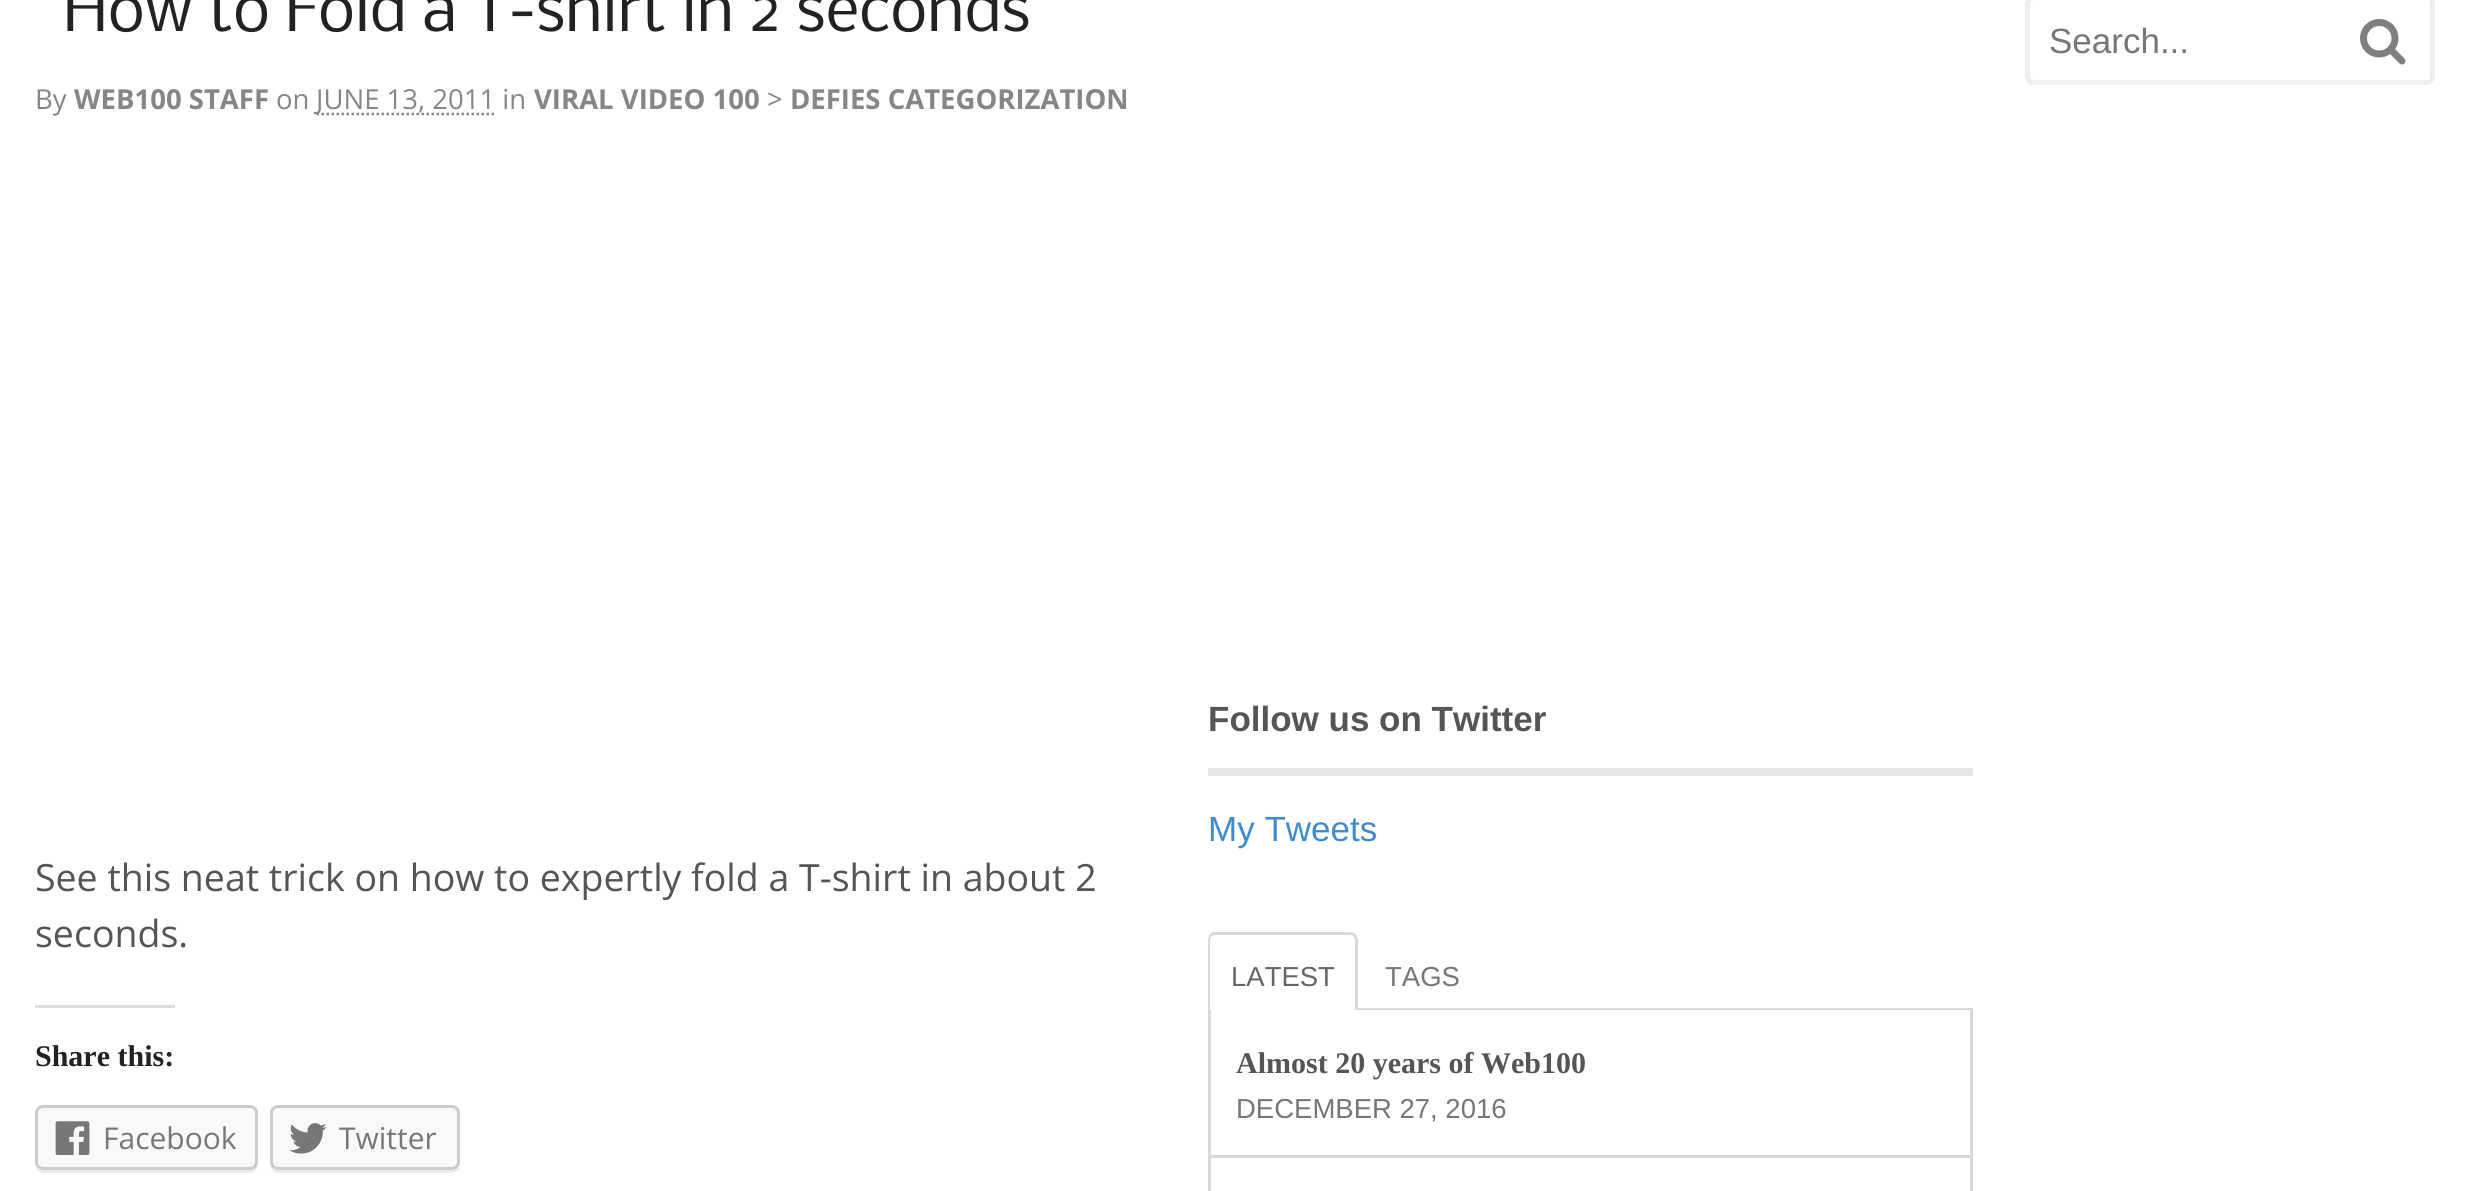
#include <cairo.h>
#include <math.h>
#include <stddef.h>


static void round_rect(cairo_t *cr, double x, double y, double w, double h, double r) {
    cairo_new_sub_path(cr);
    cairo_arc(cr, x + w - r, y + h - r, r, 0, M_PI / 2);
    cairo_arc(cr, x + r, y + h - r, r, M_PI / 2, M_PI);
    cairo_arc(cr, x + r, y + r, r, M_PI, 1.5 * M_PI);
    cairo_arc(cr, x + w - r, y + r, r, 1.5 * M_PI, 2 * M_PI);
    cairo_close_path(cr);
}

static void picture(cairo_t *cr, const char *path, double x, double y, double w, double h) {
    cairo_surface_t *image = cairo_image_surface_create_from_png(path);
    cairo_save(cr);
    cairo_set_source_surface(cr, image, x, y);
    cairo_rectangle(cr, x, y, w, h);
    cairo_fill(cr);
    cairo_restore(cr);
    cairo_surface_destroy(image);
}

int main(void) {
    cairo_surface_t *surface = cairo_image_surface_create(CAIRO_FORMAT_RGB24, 2466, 1191);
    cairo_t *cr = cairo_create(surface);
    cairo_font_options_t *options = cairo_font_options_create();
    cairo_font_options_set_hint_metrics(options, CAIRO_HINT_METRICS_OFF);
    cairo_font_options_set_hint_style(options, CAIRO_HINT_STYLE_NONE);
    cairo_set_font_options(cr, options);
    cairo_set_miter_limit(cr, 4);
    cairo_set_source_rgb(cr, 1, 1, 1);
    cairo_paint(cr);
    cairo_select_font_face(cr, "Nobile", CAIRO_FONT_SLANT_NORMAL, CAIRO_FONT_WEIGHT_NORMAL);
    cairo_set_font_size(cr, 60);
    cairo_set_source_rgb(cr, 0.133, 0.133, 0.133);
    cairo_move_to(cr, 63, 31);
    cairo_show_text(cr, "How to Fold a T-shirt in 2 seconds");
    cairo_select_font_face(cr, "Open Sans", CAIRO_FONT_SLANT_NORMAL, CAIRO_FONT_WEIGHT_NORMAL);
    cairo_set_font_size(cr, 27.5);
    cairo_set_source_rgb(cr, 0.525, 0.525, 0.525);
    cairo_move_to(cr, 35, 109);
    cairo_show_text(cr, "By");
    cairo_select_font_face(cr, "Open Sans", CAIRO_FONT_SLANT_NORMAL, CAIRO_FONT_WEIGHT_BOLD);
    cairo_move_to(cr, 74, 109);
    cairo_show_text(cr, "WEB100 STAFF");
    cairo_select_font_face(cr, "Open Sans", CAIRO_FONT_SLANT_NORMAL, CAIRO_FONT_WEIGHT_NORMAL);
    cairo_move_to(cr, 276, 109);
    cairo_show_text(cr, "on");
    cairo_new_path(cr);
    cairo_move_to(cr, 316.5, 114);
    cairo_line_to(cr, 495.5, 114);
    cairo_set_line_width(cr, 2.5);
    cairo_set_dash(cr, (double[]){2.5, 2.5}, 2, 0);
    cairo_stroke(cr);
    cairo_move_to(cr, 316, 109);
    cairo_show_text(cr, "JUNE 13, 2011 in");
    cairo_select_font_face(cr, "Open Sans", CAIRO_FONT_SLANT_NORMAL, CAIRO_FONT_WEIGHT_BOLD);
    cairo_move_to(cr, 534, 109);
    cairo_show_text(cr, "VIRAL VIDEO 100");
    cairo_select_font_face(cr, "Open Sans", CAIRO_FONT_SLANT_NORMAL, CAIRO_FONT_WEIGHT_NORMAL);
    cairo_move_to(cr, 767, 109);
    cairo_show_text(cr, ">");
    cairo_select_font_face(cr, "Open Sans", CAIRO_FONT_SLANT_NORMAL, CAIRO_FONT_WEIGHT_BOLD);
    cairo_move_to(cr, 790, 109);
    cairo_show_text(cr, "DEFIES CATEGORIZATION");
    cairo_select_font_face(cr, "Open Sans", CAIRO_FONT_SLANT_NORMAL, CAIRO_FONT_WEIGHT_NORMAL);
    cairo_set_font_size(cr, 37.5);
    cairo_set_source_rgb(cr, 0.333, 0.333, 0.333);
    cairo_move_to(cr, 35, 891);
    cairo_show_text(cr, "See this neat trick on how to expertly fold a T-shirt in about 2");
    cairo_move_to(cr, 35, 947);
    cairo_show_text(cr, "seconds.");
    cairo_set_source_rgb(cr, 0.867, 0.867, 0.867);
    cairo_rectangle(cr, 35, 1005, 140, 3);
    cairo_fill(cr);
    cairo_select_font_face(cr, "Liberation Serif", CAIRO_FONT_SLANT_NORMAL, CAIRO_FONT_WEIGHT_BOLD);
    cairo_set_font_size(cr, 30);
    cairo_set_source_rgb(cr, 0.133, 0.133, 0.133);
    cairo_move_to(cr, 35, 1066);
    cairo_show_text(cr, "Share this:");
    cairo_set_source_rgb(cr, 0.922, 0.922, 0.922);
    cairo_new_path(cr);
    cairo_move_to(cr, 35, 1162);
    cairo_line_to(cr, 35, 1165);
    cairo_curve_to(cr, 35, 1169, 39, 1173, 43, 1173);
    cairo_line_to(cr, 250, 1173);
    cairo_curve_to(cr, 254, 1173, 258, 1169, 258, 1165);
    cairo_line_to(cr, 258, 1116);
    cairo_line_to(cr, 258, 1113);
    cairo_line_to(cr, 258, 1162);
    cairo_curve_to(cr, 258, 1167, 254, 1170, 250, 1170);
    cairo_line_to(cr, 42, 1170);
    cairo_curve_to(cr, 38, 1170, 35, 1167, 35, 1162);
    cairo_close_path(cr);
    cairo_fill(cr);
    cairo_set_source_rgb(cr, 0.973, 0.973, 0.973);
    round_rect(cr, 36.5, 1106.5, 220, 62, 6.5);
    cairo_fill_preserve(cr);
    cairo_set_source_rgb(cr, 0.8, 0.8, 0.8);
    cairo_set_line_width(cr, 3);
    cairo_set_dash(cr, NULL, 0, 0);
    cairo_stroke(cr);
    picture(cr, "img1.png", 55, 1121, 35, 34);
    cairo_select_font_face(cr, "Open Sans", CAIRO_FONT_SLANT_NORMAL, CAIRO_FONT_WEIGHT_NORMAL);
    cairo_set_source_rgb(cr, 0.467, 0.467, 0.467);
    cairo_move_to(cr, 103, 1149);
    cairo_show_text(cr, "Facebook");
    cairo_set_source_rgb(cr, 0.922, 0.922, 0.922);
    cairo_new_path(cr);
    cairo_move_to(cr, 270, 1162);
    cairo_line_to(cr, 270, 1165);
    cairo_curve_to(cr, 270, 1169, 274, 1173, 278, 1173);
    cairo_line_to(cr, 452, 1173);
    cairo_curve_to(cr, 456, 1173, 460, 1169, 460, 1165);
    cairo_line_to(cr, 460, 1162);
    cairo_curve_to(cr, 460, 1167, 457, 1170, 452, 1170);
    cairo_line_to(cr, 278, 1170);
    cairo_curve_to(cr, 273, 1170, 270, 1167, 270, 1162);
    cairo_close_path(cr);
    cairo_fill(cr);
    cairo_set_source_rgb(cr, 0.973, 0.973, 0.973);
    round_rect(cr, 271.5, 1106.5, 187, 62, 6.5);
    cairo_fill_preserve(cr);
    cairo_set_source_rgb(cr, 0.8, 0.8, 0.8);
    cairo_stroke(cr);
    picture(cr, "img2.png", 289, 1123, 38, 31);
    cairo_set_source_rgb(cr, 0.467, 0.467, 0.467);
    cairo_move_to(cr, 339, 1149);
    cairo_show_text(cr, "Twitter");
    cairo_set_source_rgb(cr, 0.902, 0.902, 0.902);
    cairo_rectangle(cr, 1208, 768, 765, 8);
    cairo_fill(cr);
    cairo_select_font_face(cr, "Liberation Sans", CAIRO_FONT_SLANT_NORMAL, CAIRO_FONT_WEIGHT_BOLD);
    cairo_set_font_size(cr, 35);
    cairo_set_source_rgb(cr, 0.333, 0.333, 0.333);
    cairo_move_to(cr, 1208, 731);
    cairo_show_text(cr, "Follow us on Twitter");
    cairo_select_font_face(cr, "Liberation Sans", CAIRO_FONT_SLANT_NORMAL, CAIRO_FONT_WEIGHT_NORMAL);
    cairo_set_source_rgb(cr, 0.259, 0.545, 0.792);
    cairo_move_to(cr, 1208, 841);
    cairo_show_text(cr, "My Tweets");
    cairo_set_source_rgb(cr, 0.851, 0.851, 0.851);
    cairo_set_fill_rule(cr, CAIRO_FILL_RULE_EVEN_ODD);
    cairo_new_path(cr);
    cairo_move_to(cr, 1215, 932);
    cairo_line_to(cr, 1350, 932);
    cairo_curve_to(cr, 1354, 932, 1358, 936, 1358, 940);
    cairo_line_to(cr, 1358, 1010);
    cairo_line_to(cr, 1208, 1010);
    cairo_line_to(cr, 1208, 940);
    cairo_curve_to(cr, 1208, 936, 1211, 932, 1215, 932);
    cairo_close_path(cr);
    cairo_move_to(cr, 1215, 935);
    cairo_line_to(cr, 1350, 935);
    cairo_curve_to(cr, 1353, 935, 1355, 937, 1355, 940);
    cairo_line_to(cr, 1355, 1010);
    cairo_line_to(cr, 1210, 1010);
    cairo_line_to(cr, 1210, 940);
    cairo_curve_to(cr, 1210, 937, 1212, 935, 1215, 935);
    cairo_close_path(cr);
    cairo_fill(cr);
    cairo_set_font_size(cr, 27.5);
    cairo_set_source_rgb(cr, 0.4, 0.4, 0.4);
    cairo_move_to(cr, 1231, 986);
    cairo_show_text(cr, "LATEST");
    cairo_set_source_rgb(cr, 0.467, 0.467, 0.467);
    cairo_move_to(cr, 1385, 986);
    cairo_show_text(cr, "TAGS");
    cairo_set_source_rgb(cr, 0.851, 0.851, 0.851);
    cairo_rectangle(cr, 1358, 1008, 615, 2);
    cairo_fill(cr);
    cairo_rectangle(cr, 1970, 1010, 3, 181);
    cairo_fill(cr);
    cairo_rectangle(cr, 1208, 1155, 765, 3);
    cairo_fill(cr);
    cairo_rectangle(cr, 1208, 1010, 3, 181);
    cairo_fill(cr);
    cairo_select_font_face(cr, "Liberation Serif", CAIRO_FONT_SLANT_NORMAL, CAIRO_FONT_WEIGHT_BOLD);
    cairo_set_font_size(cr, 30);
    cairo_set_source_rgb(cr, 0.333, 0.333, 0.333);
    cairo_move_to(cr, 1236, 1073);
    cairo_show_text(cr, "Almost 20 years of Web100");
    cairo_select_font_face(cr, "Liberation Sans", CAIRO_FONT_SLANT_NORMAL, CAIRO_FONT_WEIGHT_NORMAL);
    cairo_set_font_size(cr, 27.5);
    cairo_set_source_rgb(cr, 0.467, 0.467, 0.467);
    cairo_move_to(cr, 1236, 1118);
    cairo_show_text(cr, "DECEMBER 27, 2016");
    round_rect(cr, 2027.5, -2.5, 405, 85, 5.5);
    cairo_set_source_rgb(cr, 0.937, 0.937, 0.937);
    cairo_set_line_width(cr, 5);
    cairo_stroke(cr);
    cairo_set_font_size(cr, 35);
    cairo_set_source_rgb(cr, 0.467, 0.467, 0.467);
    cairo_move_to(cr, 2049, 53);
    cairo_show_text(cr, "Search...");
    picture(cr, "img3.png", 2360, 19, 46, 46);
    cairo_surface_write_to_png(surface, "page.png");
    cairo_font_options_destroy(options);
    cairo_destroy(cr);
    cairo_surface_destroy(surface);
    return 0;
}
